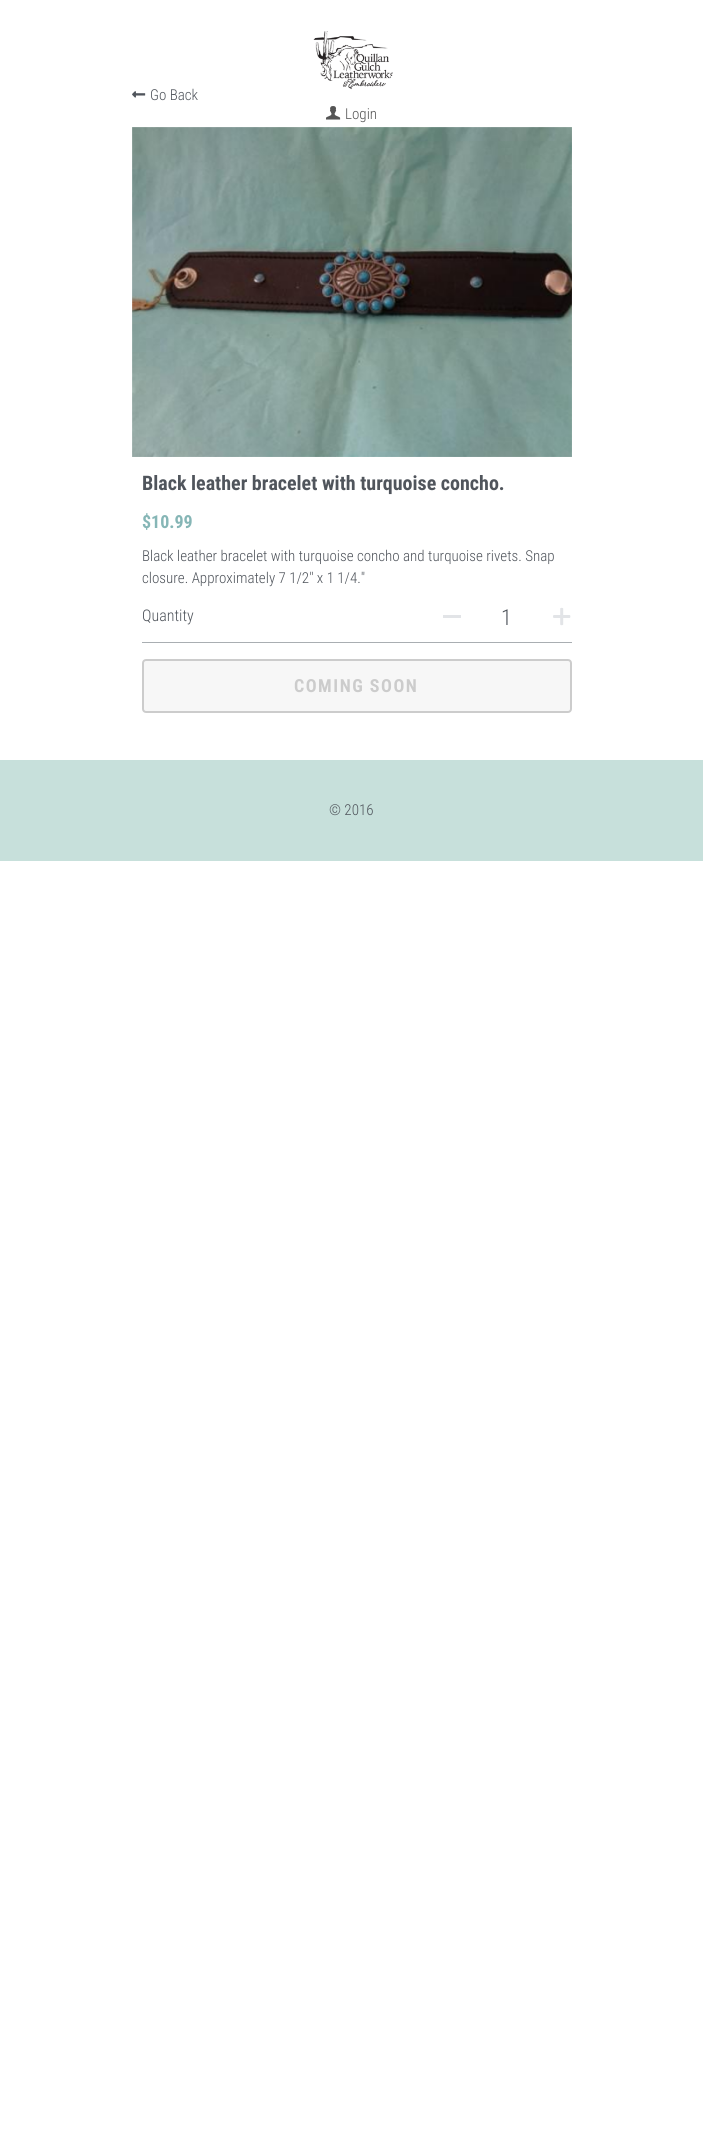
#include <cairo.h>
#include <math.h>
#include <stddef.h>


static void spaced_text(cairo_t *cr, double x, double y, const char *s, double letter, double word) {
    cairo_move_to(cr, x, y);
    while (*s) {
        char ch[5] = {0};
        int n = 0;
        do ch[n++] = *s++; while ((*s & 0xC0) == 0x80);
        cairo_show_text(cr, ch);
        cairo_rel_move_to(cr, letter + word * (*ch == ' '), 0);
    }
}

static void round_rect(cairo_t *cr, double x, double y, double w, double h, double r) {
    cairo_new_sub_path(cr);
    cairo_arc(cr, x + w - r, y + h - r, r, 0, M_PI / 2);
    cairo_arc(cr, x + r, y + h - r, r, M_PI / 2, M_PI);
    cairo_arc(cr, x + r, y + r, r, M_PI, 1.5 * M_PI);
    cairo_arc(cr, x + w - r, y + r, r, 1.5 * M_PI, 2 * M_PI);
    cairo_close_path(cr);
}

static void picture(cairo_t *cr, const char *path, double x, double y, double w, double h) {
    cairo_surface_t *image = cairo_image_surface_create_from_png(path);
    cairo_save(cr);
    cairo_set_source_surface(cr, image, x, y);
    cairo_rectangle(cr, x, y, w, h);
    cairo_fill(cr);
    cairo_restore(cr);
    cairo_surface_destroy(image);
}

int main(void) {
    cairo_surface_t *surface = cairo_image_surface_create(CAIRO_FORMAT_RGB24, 703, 2144);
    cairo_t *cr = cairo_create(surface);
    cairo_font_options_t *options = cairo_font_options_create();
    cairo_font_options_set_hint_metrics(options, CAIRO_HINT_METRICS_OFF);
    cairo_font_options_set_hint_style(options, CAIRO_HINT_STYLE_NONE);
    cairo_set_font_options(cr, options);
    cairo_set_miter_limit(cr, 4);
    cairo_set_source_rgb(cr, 1, 1, 1);
    cairo_paint(cr);
    picture(cr, "img1.png", 132, 91, 14, 7);
    cairo_select_font_face(cr, "Roboto Condensed Light", CAIRO_FONT_SLANT_NORMAL, CAIRO_FONT_WEIGHT_NORMAL);
    cairo_set_font_size(cr, 15);
    cairo_set_source_rgb(cr, 0.314, 0.333, 0.361);
    cairo_move_to(cr, 150, 100);
    cairo_show_text(cr, "Go Back");
    picture(cr, "img2.png", 132, 127, 440, 330);
    cairo_select_font_face(cr, "Roboto Condensed", CAIRO_FONT_SLANT_NORMAL, CAIRO_FONT_WEIGHT_BOLD);
    cairo_set_font_size(cr, 20);
    cairo_move_to(cr, 142, 490);
    cairo_show_text(cr, "Black leather bracelet with turquoise concho.");
    cairo_set_font_size(cr, 18);
    cairo_set_source_rgb(cr, 0.525, 0.714, 0.714);
    cairo_move_to(cr, 142, 528);
    cairo_show_text(cr, "$10.99");
    cairo_select_font_face(cr, "Roboto Condensed Light", CAIRO_FONT_SLANT_NORMAL, CAIRO_FONT_WEIGHT_NORMAL);
    cairo_set_font_size(cr, 15);
    cairo_set_source_rgb(cr, 0.314, 0.333, 0.361);
    cairo_move_to(cr, 142, 561);
    cairo_show_text(cr, "Black leather bracelet with turquoise concho and turquoise rivets. Snap");
    cairo_move_to(cr, 142, 583);
    cairo_show_text(cr, "closure. Approximately 7 1/2\" x 1 1/4.\"");
    cairo_set_source_rgb(cr, 0.663, 0.682, 0.698);
    cairo_rectangle(cr, 142, 642, 430, 1);
    cairo_fill(cr);
    cairo_set_font_size(cr, 16);
    cairo_set_source_rgb(cr, 0.314, 0.333, 0.361);
    cairo_move_to(cr, 142, 621);
    cairo_show_text(cr, "Quantity");
    cairo_set_source_rgb(cr, 0.886, 0.894, 0.906);
    cairo_rectangle(cr, 443, 615, 18, 3);
    cairo_fill(cr);
    cairo_set_font_size(cr, 22);
    cairo_set_source_rgb(cr, 0.314, 0.333, 0.361);
    cairo_move_to(cr, 501, 625);
    cairo_show_text(cr, "1");
    picture(cr, "img3.png", 553, 607, 18, 19);
    cairo_set_source_rgb(cr, 0.965, 0.965, 0.965);
    round_rect(cr, 143, 660, 428, 52, 3);
    cairo_fill_preserve(cr);
    cairo_set_source_rgb(cr, 0.8, 0.8, 0.8);
    cairo_stroke(cr);
    cairo_select_font_face(cr, "Roboto Condensed", CAIRO_FONT_SLANT_NORMAL, CAIRO_FONT_WEIGHT_BOLD);
    cairo_set_font_size(cr, 18);
    spaced_text(cr, 294, 692, "COMING SOON", 1.5, 0);
    picture(cr, "img4.png", 313, 31, 80, 59);
    picture(cr, "img5.png", 326, 106, 15, 14);
    cairo_select_font_face(cr, "Roboto Condensed Light", CAIRO_FONT_SLANT_NORMAL, CAIRO_FONT_WEIGHT_NORMAL);
    cairo_set_font_size(cr, 15);
    cairo_set_source_rgb(cr, 0.333, 0.333, 0.333);
    cairo_move_to(cr, 345, 119);
    cairo_show_text(cr, "Login");
    cairo_set_source_rgb(cr, 0.78, 0.878, 0.859);
    cairo_rectangle(cr, 0, 760, 703, 101);
    cairo_fill(cr);
    cairo_set_source_rgb(cr, 0.314, 0.333, 0.361);
    cairo_move_to(cr, 329, 815);
    cairo_show_text(cr, "© 2016");
    cairo_surface_write_to_png(surface, "page.png");
    cairo_font_options_destroy(options);
    cairo_destroy(cr);
    cairo_surface_destroy(surface);
    return 0;
}
